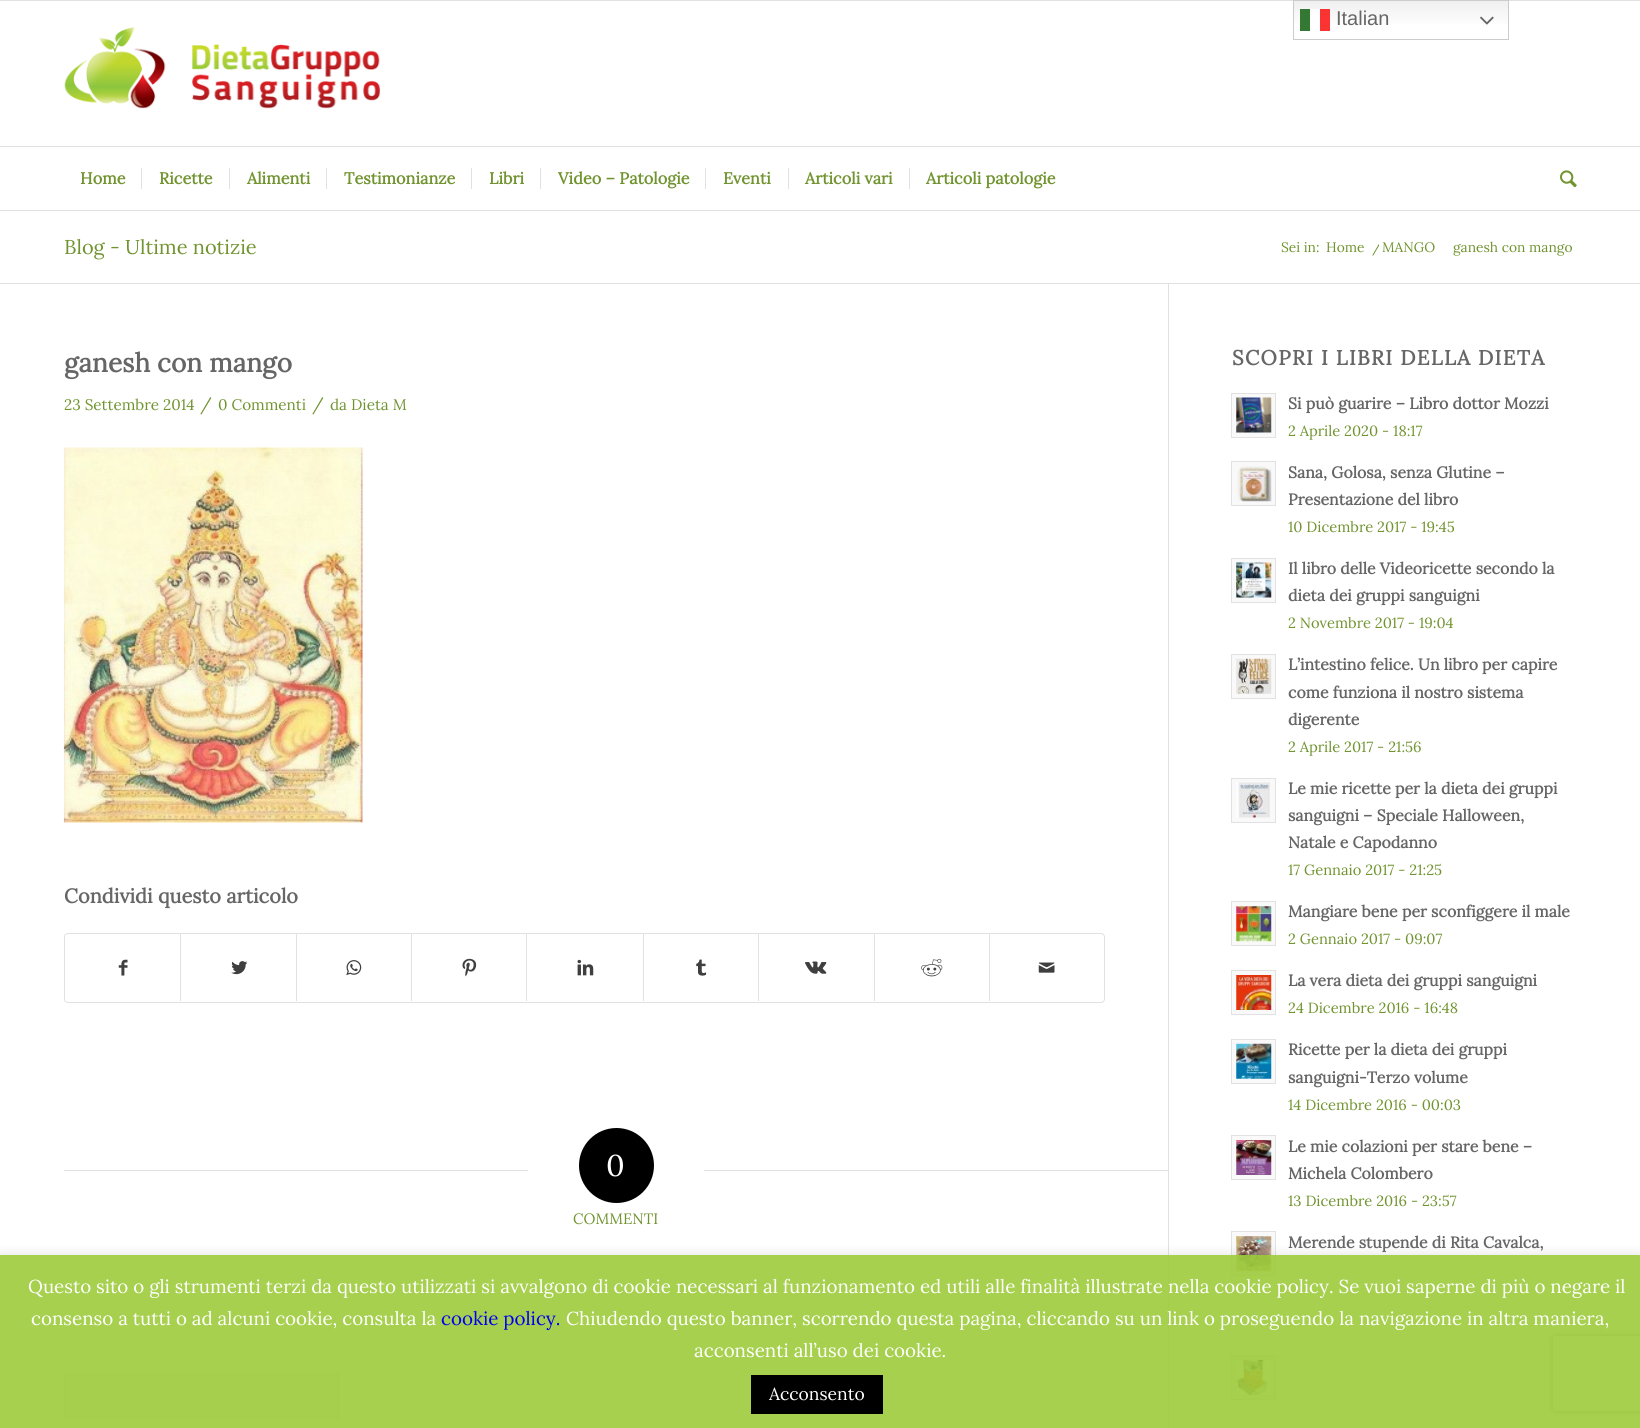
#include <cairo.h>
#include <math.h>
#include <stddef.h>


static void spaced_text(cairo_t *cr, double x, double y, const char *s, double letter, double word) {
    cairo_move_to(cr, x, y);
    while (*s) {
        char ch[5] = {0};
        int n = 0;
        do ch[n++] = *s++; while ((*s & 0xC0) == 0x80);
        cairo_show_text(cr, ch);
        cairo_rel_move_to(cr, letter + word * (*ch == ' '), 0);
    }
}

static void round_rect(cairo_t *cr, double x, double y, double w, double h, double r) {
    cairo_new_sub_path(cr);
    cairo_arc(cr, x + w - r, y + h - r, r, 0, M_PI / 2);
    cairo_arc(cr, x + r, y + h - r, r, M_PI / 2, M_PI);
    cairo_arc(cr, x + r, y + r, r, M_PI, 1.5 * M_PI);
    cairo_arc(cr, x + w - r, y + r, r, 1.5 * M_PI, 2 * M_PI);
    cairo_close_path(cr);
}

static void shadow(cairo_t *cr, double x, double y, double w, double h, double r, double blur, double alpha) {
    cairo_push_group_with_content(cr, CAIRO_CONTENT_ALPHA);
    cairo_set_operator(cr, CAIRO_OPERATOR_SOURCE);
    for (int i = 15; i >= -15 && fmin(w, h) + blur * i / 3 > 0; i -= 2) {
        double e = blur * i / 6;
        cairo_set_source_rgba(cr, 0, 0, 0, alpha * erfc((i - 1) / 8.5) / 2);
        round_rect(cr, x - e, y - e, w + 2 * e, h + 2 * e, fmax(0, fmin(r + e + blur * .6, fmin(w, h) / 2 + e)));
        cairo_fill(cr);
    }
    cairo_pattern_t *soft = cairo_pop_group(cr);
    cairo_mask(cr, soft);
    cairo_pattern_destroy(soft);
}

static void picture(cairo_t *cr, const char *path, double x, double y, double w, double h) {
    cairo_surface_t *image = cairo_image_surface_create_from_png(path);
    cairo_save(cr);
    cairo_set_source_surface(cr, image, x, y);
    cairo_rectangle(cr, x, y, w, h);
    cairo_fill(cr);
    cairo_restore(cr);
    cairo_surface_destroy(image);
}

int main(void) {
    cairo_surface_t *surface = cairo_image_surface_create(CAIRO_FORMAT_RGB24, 1640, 1428);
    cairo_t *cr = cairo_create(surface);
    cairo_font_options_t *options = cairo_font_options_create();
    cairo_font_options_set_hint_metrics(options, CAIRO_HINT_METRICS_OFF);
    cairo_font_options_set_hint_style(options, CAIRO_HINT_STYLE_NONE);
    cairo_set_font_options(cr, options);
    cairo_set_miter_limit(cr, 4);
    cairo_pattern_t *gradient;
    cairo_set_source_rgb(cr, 1, 1, 1);
    cairo_paint(cr);
    gradient = cairo_pattern_create_linear(1401, 0, 1401, 40);
    cairo_pattern_add_color_stop_rgba(gradient, 0, 0.937, 0.937, 0.937, 1);
    cairo_pattern_add_color_stop_rgba(gradient, 0.7, 1, 1, 1, 1);
    cairo_set_source(cr, gradient);
    cairo_pattern_destroy(gradient);
    cairo_rectangle(cr, 1294, 1, 214, 23);
    cairo_fill(cr);
    gradient = cairo_pattern_create_linear(1401, 0, 1401, 40);
    cairo_pattern_add_color_stop_rgba(gradient, 0, 0.988, 0.988, 0.988, 1);
    cairo_pattern_add_color_stop_rgba(gradient, 0.7, 1, 1, 1, 1);
    cairo_set_source(cr, gradient);
    cairo_pattern_destroy(gradient);
    cairo_rectangle(cr, 1310, 9, 10, 15);
    cairo_fill(cr);
    cairo_set_source_rgb(cr, 0.882, 0.882, 0.882);
    cairo_rectangle(cr, 0, 0, 1640, 1);
    cairo_fill(cr);
    cairo_rectangle(cr, 1293.5, 0.5, 215, 39);
    cairo_set_source_rgb(cr, 0.8, 0.8, 0.8);
    cairo_set_line_width(cr, 1);
    cairo_stroke(cr);
    cairo_set_source_rgb(cr, 0.2, 0.471, 0.2);
    cairo_rectangle(cr, 1300, 9, 10, 22);
    cairo_fill(cr);
    cairo_set_source_rgb(cr, 0.988, 0.2, 0.2);
    cairo_rectangle(cr, 1320, 9, 10, 22);
    cairo_fill(cr);
    cairo_select_font_face(cr, "Liberation Sans", CAIRO_FONT_SLANT_NORMAL, CAIRO_FONT_WEIGHT_NORMAL);
    cairo_set_font_size(cr, 20);
    cairo_set_source_rgb(cr, 0.4, 0.4, 0.4);
    cairo_move_to(cr, 1336, 25);
    cairo_show_text(cr, "Italian");
    picture(cr, "img1.png", 1480, 16, 14, 9);
    cairo_set_source_rgb(cr, 0.882, 0.882, 0.882);
    cairo_rectangle(cr, 0, 210, 1640, 1);
    cairo_fill(cr);
    picture(cr, "img2.png", 64, 27, 316, 82);
    cairo_rectangle(cr, 0, 146, 1640, 1);
    cairo_fill(cr);
    cairo_select_font_face(cr, "Lora", CAIRO_FONT_SLANT_NORMAL, CAIRO_FONT_WEIGHT_BOLD);
    cairo_set_font_size(cr, 16.25);
    cairo_set_source_rgb(cr, 0.443, 0.58, 0.188);
    cairo_move_to(cr, 80, 184);
    cairo_show_text(cr, "Home");
    cairo_move_to(cr, 159, 184);
    cairo_show_text(cr, "Ricette");
    cairo_set_source_rgb(cr, 0.882, 0.882, 0.882);
    cairo_rectangle(cr, 141, 168, 1, 21);
    cairo_fill(cr);
    cairo_set_source_rgb(cr, 0.443, 0.58, 0.188);
    cairo_move_to(cr, 247, 184);
    cairo_show_text(cr, "Alimenti");
    cairo_set_source_rgb(cr, 0.882, 0.882, 0.882);
    cairo_rectangle(cr, 229, 168, 1, 21);
    cairo_fill(cr);
    cairo_set_source_rgb(cr, 0.443, 0.58, 0.188);
    cairo_move_to(cr, 344, 184);
    cairo_show_text(cr, "Testimonianze");
    cairo_set_source_rgb(cr, 0.882, 0.882, 0.882);
    cairo_rectangle(cr, 326, 168, 1, 21);
    cairo_fill(cr);
    cairo_set_source_rgb(cr, 0.443, 0.58, 0.188);
    cairo_move_to(cr, 489, 184);
    cairo_show_text(cr, "Libri");
    cairo_set_source_rgb(cr, 0.882, 0.882, 0.882);
    cairo_rectangle(cr, 471, 168, 1, 21);
    cairo_fill(cr);
    cairo_set_source_rgb(cr, 0.443, 0.58, 0.188);
    cairo_move_to(cr, 558, 184);
    cairo_show_text(cr, "Video – Patologie");
    cairo_set_source_rgb(cr, 0.882, 0.882, 0.882);
    cairo_rectangle(cr, 540, 168, 1, 21);
    cairo_fill(cr);
    cairo_set_source_rgb(cr, 0.443, 0.58, 0.188);
    cairo_move_to(cr, 723, 184);
    cairo_show_text(cr, "Eventi");
    cairo_set_source_rgb(cr, 0.882, 0.882, 0.882);
    cairo_rectangle(cr, 705, 168, 1, 21);
    cairo_fill(cr);
    cairo_set_source_rgb(cr, 0.443, 0.58, 0.188);
    cairo_move_to(cr, 805, 184);
    cairo_show_text(cr, "Articoli vari");
    cairo_set_source_rgb(cr, 0.882, 0.882, 0.882);
    cairo_rectangle(cr, 788, 168, 1, 21);
    cairo_fill(cr);
    cairo_set_source_rgb(cr, 0.443, 0.58, 0.188);
    cairo_move_to(cr, 926, 184);
    cairo_show_text(cr, "Articoli patologie");
    cairo_set_source_rgb(cr, 0.882, 0.882, 0.882);
    cairo_rectangle(cr, 909, 168, 1, 21);
    cairo_fill(cr);
    picture(cr, "img3.png", 1560, 170, 17, 18);
    cairo_select_font_face(cr, "Lora", CAIRO_FONT_SLANT_NORMAL, CAIRO_FONT_WEIGHT_NORMAL);
    cairo_set_font_size(cr, 20);
    cairo_set_source_rgb(cr, 0.443, 0.58, 0.188);
    cairo_move_to(cr, 64, 254);
    cairo_show_text(cr, "Blog - Ultime notizie");
    cairo_set_font_size(cr, 13.75);
    cairo_move_to(cr, 1281, 252);
    cairo_show_text(cr, "Sei in:");
    cairo_move_to(cr, 1326, 252);
    cairo_show_text(cr, "Home");
    cairo_save(cr);
    cairo_rectangle(cr, 1369, 238, 10, 18);
    cairo_clip(cr);
    cairo_move_to(cr, 1372, 252);
    cairo_show_text(cr, "/");
    cairo_restore(cr);
    cairo_move_to(cr, 1382, 252);
    cairo_show_text(cr, "MANGO");
    cairo_move_to(cr, 1453, 252);
    cairo_show_text(cr, "ganesh con mango");
    cairo_set_source_rgb(cr, 0.882, 0.882, 0.882);
    cairo_rectangle(cr, 0, 283, 1640, 1);
    cairo_fill(cr);
    cairo_rectangle(cr, 1168, 284, 1, 1144);
    cairo_fill(cr);
    cairo_select_font_face(cr, "Lora", CAIRO_FONT_SLANT_NORMAL, CAIRO_FONT_WEIGHT_BOLD);
    cairo_set_font_size(cr, 26.25);
    cairo_set_source_rgb(cr, 0.4, 0.4, 0.4);
    cairo_move_to(cr, 64, 372);
    cairo_show_text(cr, "ganesh con mango");
    cairo_select_font_face(cr, "Lora", CAIRO_FONT_SLANT_NORMAL, CAIRO_FONT_WEIGHT_NORMAL);
    cairo_set_font_size(cr, 15.25);
    cairo_set_source_rgb(cr, 0.443, 0.58, 0.188);
    cairo_move_to(cr, 64, 410);
    cairo_show_text(cr, "23 Settembre 2014");
    cairo_set_font_size(cr, 17);
    cairo_move_to(cr, 200, 410);
    cairo_show_text(cr, "/");
    cairo_set_font_size(cr, 15.25);
    cairo_move_to(cr, 218, 410);
    cairo_show_text(cr, "0 Commenti");
    cairo_set_font_size(cr, 17);
    cairo_move_to(cr, 312, 410);
    cairo_show_text(cr, "/");
    cairo_set_font_size(cr, 15.25);
    cairo_move_to(cr, 330, 410);
    cairo_show_text(cr, "da Dieta M");
    picture(cr, "img4.png", 63, 447, 300, 376);
    cairo_select_font_face(cr, "Lora", CAIRO_FONT_SLANT_NORMAL, CAIRO_FONT_WEIGHT_BOLD);
    cairo_set_font_size(cr, 20);
    cairo_set_source_rgb(cr, 0.4, 0.4, 0.4);
    cairo_move_to(cr, 64, 903);
    cairo_show_text(cr, "Condividi questo articolo");
    round_rect(cr, 64.5, 933.5, 1040, 69, 3.5);
    cairo_set_source_rgb(cr, 0.882, 0.882, 0.882);
    cairo_stroke(cr);
    picture(cr, "img5.png", 118, 959, 10, 17);
    cairo_rectangle(cr, 180, 934, 1, 67);
    cairo_fill(cr);
    picture(cr, "img6.png", 231, 961, 17, 14);
    cairo_rectangle(cr, 296, 934, 1, 67);
    cairo_fill(cr);
    picture(cr, "img7.png", 346, 960, 16, 16);
    cairo_rectangle(cr, 411, 934, 1, 67);
    cairo_fill(cr);
    picture(cr, "img8.png", 462, 958, 15, 19);
    cairo_rectangle(cr, 526, 934, 1, 67);
    cairo_fill(cr);
    picture(cr, "img9.png", 577, 959, 17, 17);
    cairo_rectangle(cr, 643, 934, 1, 67);
    cairo_fill(cr);
    picture(cr, "img10.png", 696, 959, 11, 17);
    cairo_rectangle(cr, 758, 934, 1, 67);
    cairo_fill(cr);
    picture(cr, "img11.png", 805, 961, 22, 13);
    cairo_rectangle(cr, 874, 934, 1, 67);
    cairo_fill(cr);
    picture(cr, "img12.png", 921, 958, 22, 19);
    cairo_rectangle(cr, 989, 934, 1, 67);
    cairo_fill(cr);
    picture(cr, "img13.png", 1038, 962, 17, 11);
    cairo_rectangle(cr, 64, 1170, 464, 1);
    cairo_fill(cr);
    cairo_set_source_rgb(cr, 0, 0, 0);
    cairo_arc(cr, 616.5, 1165.5, 37.5, 0, 2 * M_PI);
    cairo_fill(cr);
    cairo_select_font_face(cr, "Lora", CAIRO_FONT_SLANT_NORMAL, CAIRO_FONT_WEIGHT_NORMAL);
    cairo_set_font_size(cr, 30);
    cairo_set_source_rgb(cr, 1, 1, 1);
    cairo_move_to(cr, 606, 1176);
    cairo_show_text(cr, "0");
    cairo_set_source_rgb(cr, 0.882, 0.882, 0.882);
    cairo_rectangle(cr, 704, 1170, 464, 1);
    cairo_fill(cr);
    cairo_set_font_size(cr, 15);
    cairo_set_source_rgb(cr, 0.443, 0.58, 0.188);
    cairo_move_to(cr, 573, 1224);
    cairo_show_text(cr, "COMMENTI");
    cairo_set_source_rgb(cr, 0.973, 0.973, 0.973);
    cairo_rectangle(cr, 64.5, 1374.5, 274, 43);
    cairo_fill_preserve(cr);
    cairo_set_source_rgb(cr, 0.882, 0.882, 0.882);
    cairo_stroke(cr);
    cairo_save(cr);
    cairo_set_fill_rule(cr, CAIRO_FILL_RULE_EVEN_ODD);
    cairo_new_path(cr);
    cairo_move_to(cr, 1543, 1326);
    cairo_line_to(cr, 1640, 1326);
    cairo_line_to(cr, 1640, 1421);
    cairo_line_to(cr, 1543, 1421);
    cairo_close_path(cr);
    cairo_move_to(cr, 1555.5, 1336);
    cairo_line_to(cr, 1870.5, 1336);
    cairo_curve_to(cr, 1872, 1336, 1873, 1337, 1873, 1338.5);
    cairo_line_to(cr, 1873, 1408.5);
    cairo_curve_to(cr, 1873, 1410, 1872, 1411, 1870.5, 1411);
    cairo_line_to(cr, 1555.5, 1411);
    cairo_curve_to(cr, 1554, 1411, 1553, 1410, 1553, 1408.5);
    cairo_line_to(cr, 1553, 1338.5);
    cairo_curve_to(cr, 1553, 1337, 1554, 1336, 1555.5, 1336);
    cairo_close_path(cr);
    cairo_clip(cr);
    cairo_set_source_rgb(cr, 0.502, 0.502, 0.502);
    shadow(cr, 1553, 1336, 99, 75, 2.5, 3, 1);
    cairo_restore(cr);
    cairo_select_font_face(cr, "Lora", CAIRO_FONT_SLANT_NORMAL, CAIRO_FONT_WEIGHT_BOLD);
    cairo_set_font_size(cr, 20.6);
    cairo_set_source_rgb(cr, 0.4, 0.4, 0.4);
    spaced_text(cr, 1232, 365, "SCOPRI I LIBRI DELLA DIETA", 1.25, 0);
    cairo_set_source_rgb(cr, 0.973, 0.973, 0.973);
    cairo_rectangle(cr, 1231.5, 393.5, 44, 44);
    cairo_fill_preserve(cr);
    cairo_set_source_rgb(cr, 0.882, 0.882, 0.882);
    cairo_stroke(cr);
    picture(cr, "img14.png", 1236, 397, 36, 36);
    cairo_set_font_size(cr, 15.9);
    cairo_set_source_rgb(cr, 0.4, 0.4, 0.4);
    cairo_move_to(cr, 1288, 409);
    cairo_show_text(cr, "Si può guarire – Libro dottor Mozzi");
    cairo_select_font_face(cr, "Lora", CAIRO_FONT_SLANT_NORMAL, CAIRO_FONT_WEIGHT_NORMAL);
    cairo_set_font_size(cr, 14.7);
    cairo_set_source_rgb(cr, 0.443, 0.58, 0.188);
    cairo_move_to(cr, 1288, 436);
    cairo_show_text(cr, "2 Aprile 2020 - 18:17");
    cairo_set_source_rgb(cr, 0.973, 0.973, 0.973);
    cairo_rectangle(cr, 1231.5, 461.5, 44, 44);
    cairo_fill_preserve(cr);
    cairo_set_source_rgb(cr, 0.882, 0.882, 0.882);
    cairo_stroke(cr);
    picture(cr, "img15.png", 1236, 466, 36, 36);
    cairo_select_font_face(cr, "Lora", CAIRO_FONT_SLANT_NORMAL, CAIRO_FONT_WEIGHT_BOLD);
    cairo_set_font_size(cr, 15.9);
    cairo_set_source_rgb(cr, 0.4, 0.4, 0.4);
    cairo_move_to(cr, 1288, 478);
    cairo_show_text(cr, "Sana, Golosa, senza Glutine –");
    cairo_move_to(cr, 1288, 505);
    cairo_show_text(cr, "Presentazione del libro");
    cairo_select_font_face(cr, "Lora", CAIRO_FONT_SLANT_NORMAL, CAIRO_FONT_WEIGHT_NORMAL);
    cairo_set_font_size(cr, 14.7);
    cairo_set_source_rgb(cr, 0.443, 0.58, 0.188);
    cairo_move_to(cr, 1288, 532);
    cairo_show_text(cr, "10 Dicembre 2017 - 19:45");
    cairo_set_source_rgb(cr, 0.973, 0.973, 0.973);
    cairo_rectangle(cr, 1231.5, 558.5, 44, 44);
    cairo_fill_preserve(cr);
    cairo_set_source_rgb(cr, 0.882, 0.882, 0.882);
    cairo_stroke(cr);
    picture(cr, "img16.png", 1236, 562, 36, 36);
    cairo_select_font_face(cr, "Lora", CAIRO_FONT_SLANT_NORMAL, CAIRO_FONT_WEIGHT_BOLD);
    cairo_set_font_size(cr, 15.9);
    cairo_set_source_rgb(cr, 0.4, 0.4, 0.4);
    cairo_move_to(cr, 1288, 574);
    cairo_show_text(cr, "Il libro delle Videoricette secondo la");
    cairo_move_to(cr, 1288, 601);
    cairo_show_text(cr, "dieta dei gruppi sanguigni");
    cairo_select_font_face(cr, "Lora", CAIRO_FONT_SLANT_NORMAL, CAIRO_FONT_WEIGHT_NORMAL);
    cairo_set_font_size(cr, 14.7);
    cairo_set_source_rgb(cr, 0.443, 0.58, 0.188);
    cairo_move_to(cr, 1288, 628);
    cairo_show_text(cr, "2 Novembre 2017 - 19:04");
    cairo_set_source_rgb(cr, 0.973, 0.973, 0.973);
    cairo_rectangle(cr, 1231.5, 654.5, 44, 44);
    cairo_fill_preserve(cr);
    cairo_set_source_rgb(cr, 0.882, 0.882, 0.882);
    cairo_stroke(cr);
    picture(cr, "img17.png", 1236, 658, 36, 36);
    cairo_select_font_face(cr, "Lora", CAIRO_FONT_SLANT_NORMAL, CAIRO_FONT_WEIGHT_BOLD);
    cairo_set_font_size(cr, 15.9);
    cairo_set_source_rgb(cr, 0.4, 0.4, 0.4);
    cairo_move_to(cr, 1288, 670);
    cairo_show_text(cr, "L’intestino felice. Un libro per capire");
    cairo_move_to(cr, 1288, 698);
    cairo_show_text(cr, "come funziona il nostro sistema");
    cairo_move_to(cr, 1288, 725);
    cairo_show_text(cr, "digerente");
    cairo_select_font_face(cr, "Lora", CAIRO_FONT_SLANT_NORMAL, CAIRO_FONT_WEIGHT_NORMAL);
    cairo_set_font_size(cr, 14.7);
    cairo_set_source_rgb(cr, 0.443, 0.58, 0.188);
    cairo_move_to(cr, 1288, 752);
    cairo_show_text(cr, "2 Aprile 2017 - 21:56");
    cairo_set_source_rgb(cr, 0.973, 0.973, 0.973);
    cairo_rectangle(cr, 1231.5, 778.5, 44, 44);
    cairo_fill_preserve(cr);
    cairo_set_source_rgb(cr, 0.882, 0.882, 0.882);
    cairo_stroke(cr);
    picture(cr, "img18.png", 1236, 782, 34, 36);
    cairo_select_font_face(cr, "Lora", CAIRO_FONT_SLANT_NORMAL, CAIRO_FONT_WEIGHT_BOLD);
    cairo_set_font_size(cr, 15.9);
    cairo_set_source_rgb(cr, 0.4, 0.4, 0.4);
    cairo_move_to(cr, 1288, 794);
    cairo_show_text(cr, "Le mie ricette per la dieta dei gruppi");
    cairo_move_to(cr, 1288, 821);
    cairo_show_text(cr, "sanguigni – Speciale Halloween,");
    cairo_move_to(cr, 1288, 848);
    cairo_show_text(cr, "Natale e Capodanno");
    cairo_select_font_face(cr, "Lora", CAIRO_FONT_SLANT_NORMAL, CAIRO_FONT_WEIGHT_NORMAL);
    cairo_set_font_size(cr, 14.7);
    cairo_set_source_rgb(cr, 0.443, 0.58, 0.188);
    cairo_move_to(cr, 1288, 875);
    cairo_show_text(cr, "17 Gennaio 2017 - 21:25");
    cairo_set_source_rgb(cr, 0.973, 0.973, 0.973);
    cairo_rectangle(cr, 1231.5, 901.5, 44, 44);
    cairo_fill_preserve(cr);
    cairo_set_source_rgb(cr, 0.882, 0.882, 0.882);
    cairo_stroke(cr);
    picture(cr, "img19.png", 1236, 906, 36, 36);
    cairo_select_font_face(cr, "Lora", CAIRO_FONT_SLANT_NORMAL, CAIRO_FONT_WEIGHT_BOLD);
    cairo_set_font_size(cr, 15.9);
    cairo_set_source_rgb(cr, 0.4, 0.4, 0.4);
    cairo_move_to(cr, 1288, 917);
    cairo_show_text(cr, "Mangiare bene per sconfiggere il male");
    cairo_select_font_face(cr, "Lora", CAIRO_FONT_SLANT_NORMAL, CAIRO_FONT_WEIGHT_NORMAL);
    cairo_set_font_size(cr, 14.7);
    cairo_set_source_rgb(cr, 0.443, 0.58, 0.188);
    cairo_move_to(cr, 1288, 944);
    cairo_show_text(cr, "2 Gennaio 2017 - 09:07");
    cairo_set_source_rgb(cr, 0.973, 0.973, 0.973);
    cairo_rectangle(cr, 1231.5, 970.5, 44, 44);
    cairo_fill_preserve(cr);
    cairo_set_source_rgb(cr, 0.882, 0.882, 0.882);
    cairo_stroke(cr);
    picture(cr, "img20.png", 1236, 975, 36, 35);
    cairo_select_font_face(cr, "Lora", CAIRO_FONT_SLANT_NORMAL, CAIRO_FONT_WEIGHT_BOLD);
    cairo_set_font_size(cr, 15.9);
    cairo_set_source_rgb(cr, 0.4, 0.4, 0.4);
    cairo_move_to(cr, 1288, 986);
    cairo_show_text(cr, "La vera dieta dei gruppi sanguigni");
    cairo_select_font_face(cr, "Lora", CAIRO_FONT_SLANT_NORMAL, CAIRO_FONT_WEIGHT_NORMAL);
    cairo_set_font_size(cr, 14.7);
    cairo_set_source_rgb(cr, 0.443, 0.58, 0.188);
    cairo_move_to(cr, 1288, 1013);
    cairo_show_text(cr, "24 Dicembre 2016 - 16:48");
    cairo_set_source_rgb(cr, 0.973, 0.973, 0.973);
    cairo_rectangle(cr, 1231.5, 1039.5, 44, 44);
    cairo_fill_preserve(cr);
    cairo_set_source_rgb(cr, 0.882, 0.882, 0.882);
    cairo_stroke(cr);
    picture(cr, "img21.png", 1236, 1043, 36, 36);
    cairo_select_font_face(cr, "Lora", CAIRO_FONT_SLANT_NORMAL, CAIRO_FONT_WEIGHT_BOLD);
    cairo_set_font_size(cr, 15.9);
    cairo_set_source_rgb(cr, 0.4, 0.4, 0.4);
    cairo_move_to(cr, 1288, 1055);
    cairo_show_text(cr, "Ricette per la dieta dei gruppi");
    cairo_move_to(cr, 1288, 1083);
    cairo_show_text(cr, "sanguigni-Terzo volume");
    cairo_select_font_face(cr, "Lora", CAIRO_FONT_SLANT_NORMAL, CAIRO_FONT_WEIGHT_NORMAL);
    cairo_set_font_size(cr, 14.7);
    cairo_set_source_rgb(cr, 0.443, 0.58, 0.188);
    cairo_move_to(cr, 1288, 1110);
    cairo_show_text(cr, "14 Dicembre 2016 - 00:03");
    cairo_set_source_rgb(cr, 0.973, 0.973, 0.973);
    cairo_rectangle(cr, 1231.5, 1135.5, 44, 44);
    cairo_fill_preserve(cr);
    cairo_set_source_rgb(cr, 0.882, 0.882, 0.882);
    cairo_stroke(cr);
    picture(cr, "img22.png", 1236, 1140, 36, 35);
    cairo_select_font_face(cr, "Lora", CAIRO_FONT_SLANT_NORMAL, CAIRO_FONT_WEIGHT_BOLD);
    cairo_set_font_size(cr, 15.9);
    cairo_set_source_rgb(cr, 0.4, 0.4, 0.4);
    cairo_move_to(cr, 1288, 1152);
    cairo_show_text(cr, "Le mie colazioni per stare bene –");
    cairo_move_to(cr, 1288, 1179);
    cairo_show_text(cr, "Michela Colombero");
    cairo_select_font_face(cr, "Lora", CAIRO_FONT_SLANT_NORMAL, CAIRO_FONT_WEIGHT_NORMAL);
    cairo_set_font_size(cr, 14.7);
    cairo_set_source_rgb(cr, 0.443, 0.58, 0.188);
    cairo_move_to(cr, 1288, 1206);
    cairo_show_text(cr, "13 Dicembre 2016 - 23:57");
    cairo_set_source_rgb(cr, 0.973, 0.973, 0.973);
    cairo_rectangle(cr, 1231.5, 1231.5, 44, 44);
    cairo_fill_preserve(cr);
    cairo_set_source_rgb(cr, 0.882, 0.882, 0.882);
    cairo_stroke(cr);
    picture(cr, "img23.png", 1236, 1236, 36, 36);
    cairo_select_font_face(cr, "Lora", CAIRO_FONT_SLANT_NORMAL, CAIRO_FONT_WEIGHT_BOLD);
    cairo_set_font_size(cr, 15.9);
    cairo_set_source_rgb(cr, 0.4, 0.4, 0.4);
    cairo_move_to(cr, 1288, 1248);
    cairo_show_text(cr, "Merende stupende di Rita Cavalca,");
    cairo_set_source_rgb(cr, 0.973, 0.973, 0.973);
    cairo_rectangle(cr, 1231.5, 1355.5, 44, 44);
    cairo_fill_preserve(cr);
    cairo_set_source_rgb(cr, 0.882, 0.882, 0.882);
    cairo_stroke(cr);
    picture(cr, "img24.png", 1236, 1360, 35, 35);
    cairo_save(cr);
    cairo_rectangle(cr, 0, 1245, 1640, 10);
    cairo_clip(cr);
    cairo_set_source_rgb(cr, 0.675, 0.671, 0.671);
    shadow(cr, 0, 1254, 1640, 174, 0, 6, 0.3);
    cairo_restore(cr);
    cairo_set_source_rgba(cr, 0.612, 0.796, 0.231, 0.9);
    cairo_rectangle(cr, 0, 1255, 1640, 173);
    cairo_fill(cr);
    cairo_select_font_face(cr, "Lora", CAIRO_FONT_SLANT_NORMAL, CAIRO_FONT_WEIGHT_NORMAL);
    cairo_set_font_size(cr, 18.75);
    cairo_set_source_rgb(cr, 1, 1, 1);
    cairo_move_to(cr, 28, 1293);
    cairo_show_text(cr, "Questo sito o gli strumenti terzi da questo utilizzati si avvalgono di cookie necessari al funzionamento ed utili alle finalità illustrate nella cookie policy. Se vuoi saperne di più o negare il");
    cairo_move_to(cr, 31, 1325);
    cairo_show_text(cr, "consenso a tutti o ad alcuni cookie, consulta la");
    cairo_set_source_rgb(cr, 0, 0, 0.933);
    cairo_move_to(cr, 441, 1325);
    cairo_show_text(cr, "cookie policy.");
    cairo_set_source_rgb(cr, 1, 1, 1);
    cairo_move_to(cr, 566, 1325);
    cairo_show_text(cr, "Chiudendo questo banner, scorrendo questa pagina, cliccando su un link o proseguendo la navigazione in altra maniera,");
    cairo_move_to(cr, 694, 1357);
    cairo_show_text(cr, "acconsenti all’uso dei cookie.");
    cairo_set_source_rgb(cr, 0, 0, 0);
    cairo_rectangle(cr, 751, 1375, 132, 39);
    cairo_fill(cr);
    cairo_set_font_size(cr, 17.5);
    cairo_set_source_rgb(cr, 1, 1, 1);
    cairo_move_to(cr, 769, 1400);
    cairo_show_text(cr, "Acconsento");
    cairo_surface_write_to_png(surface, "page.png");
    cairo_font_options_destroy(options);
    cairo_destroy(cr);
    cairo_surface_destroy(surface);
    return 0;
}
